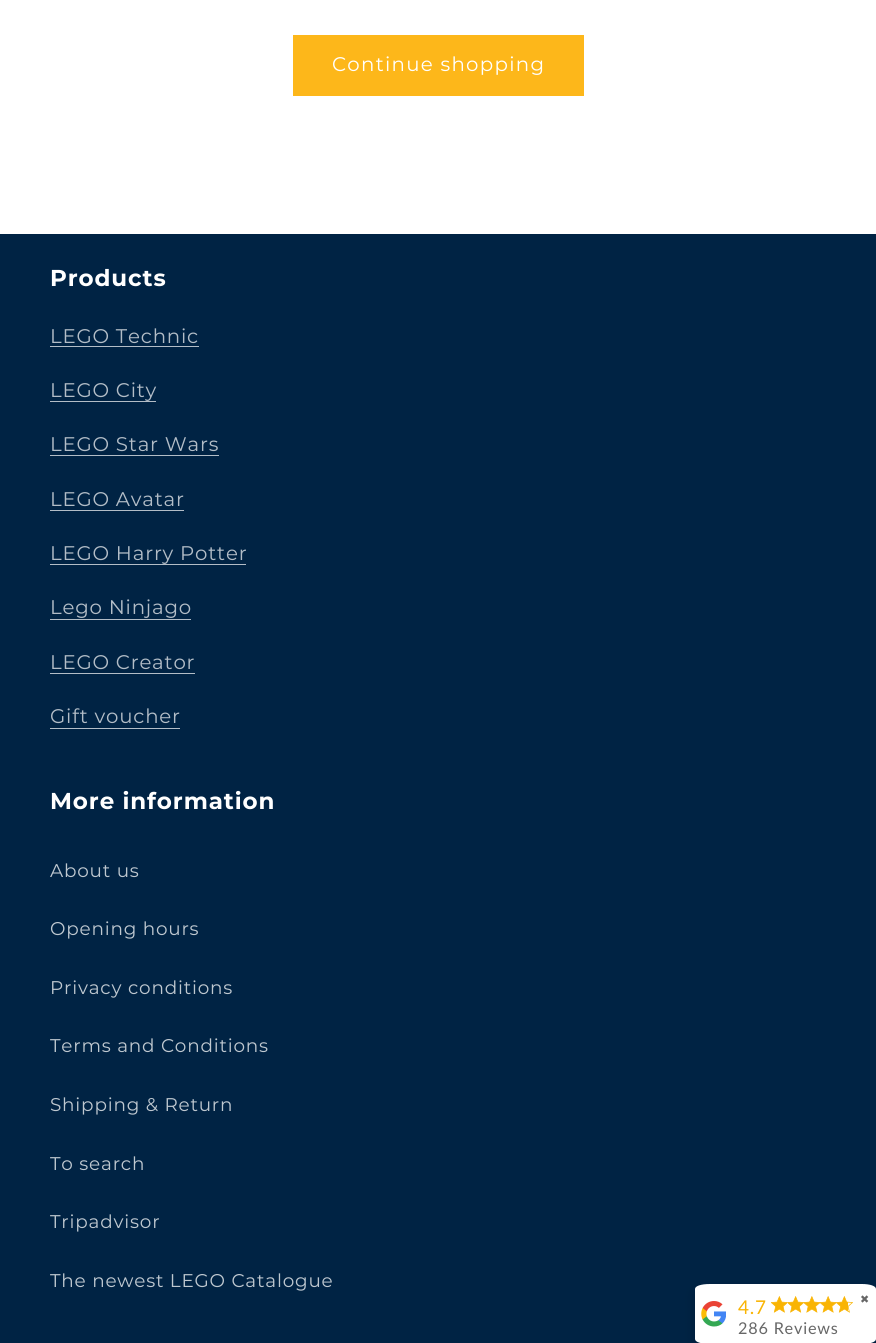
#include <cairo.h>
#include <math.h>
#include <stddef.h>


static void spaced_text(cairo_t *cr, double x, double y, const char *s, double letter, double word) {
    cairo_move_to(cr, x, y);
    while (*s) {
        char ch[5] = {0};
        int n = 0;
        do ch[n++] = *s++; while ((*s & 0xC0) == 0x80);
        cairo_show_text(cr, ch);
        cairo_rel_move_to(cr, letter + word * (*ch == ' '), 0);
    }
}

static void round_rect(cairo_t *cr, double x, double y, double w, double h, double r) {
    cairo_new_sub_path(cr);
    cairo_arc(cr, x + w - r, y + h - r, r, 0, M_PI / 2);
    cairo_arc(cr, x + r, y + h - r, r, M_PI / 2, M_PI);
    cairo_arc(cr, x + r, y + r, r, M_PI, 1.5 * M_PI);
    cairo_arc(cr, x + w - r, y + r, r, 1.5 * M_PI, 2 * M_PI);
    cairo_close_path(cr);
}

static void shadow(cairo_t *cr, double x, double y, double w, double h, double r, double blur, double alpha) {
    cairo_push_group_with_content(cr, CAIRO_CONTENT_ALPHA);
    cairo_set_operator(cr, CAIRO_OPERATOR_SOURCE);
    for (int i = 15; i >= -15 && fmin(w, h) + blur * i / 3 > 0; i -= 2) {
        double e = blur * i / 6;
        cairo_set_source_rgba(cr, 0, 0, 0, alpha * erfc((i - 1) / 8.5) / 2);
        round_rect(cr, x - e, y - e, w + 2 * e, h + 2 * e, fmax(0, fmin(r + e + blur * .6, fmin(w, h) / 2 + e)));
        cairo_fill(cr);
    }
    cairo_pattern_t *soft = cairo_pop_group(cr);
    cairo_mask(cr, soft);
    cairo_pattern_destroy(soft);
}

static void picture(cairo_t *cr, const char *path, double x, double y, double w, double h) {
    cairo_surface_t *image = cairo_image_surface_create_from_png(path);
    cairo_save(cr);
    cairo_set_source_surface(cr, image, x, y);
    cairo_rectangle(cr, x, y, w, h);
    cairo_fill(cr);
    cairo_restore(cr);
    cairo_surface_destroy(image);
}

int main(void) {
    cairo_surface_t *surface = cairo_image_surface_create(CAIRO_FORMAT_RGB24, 876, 1343);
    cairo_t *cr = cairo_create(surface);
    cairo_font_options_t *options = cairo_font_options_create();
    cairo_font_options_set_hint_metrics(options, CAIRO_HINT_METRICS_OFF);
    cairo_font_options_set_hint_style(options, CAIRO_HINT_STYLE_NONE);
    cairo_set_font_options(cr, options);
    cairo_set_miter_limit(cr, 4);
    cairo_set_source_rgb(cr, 1, 1, 1);
    cairo_paint(cr);
    cairo_set_source_rgb(cr, 0.992, 0.718, 0.102);
    cairo_rectangle(cr, 293, 35, 291, 61);
    cairo_fill(cr);
    cairo_select_font_face(cr, "Montserrat", CAIRO_FONT_SLANT_NORMAL, CAIRO_FONT_WEIGHT_NORMAL);
    cairo_set_font_size(cr, 19.75);
    cairo_set_source_rgb(cr, 1, 1, 1);
    spaced_text(cr, 332, 71, "Continue shopping", 1.3, 0);
    cairo_set_source_rgb(cr, 0, 0.137, 0.267);
    cairo_rectangle(cr, 0, 234, 876, 1109);
    cairo_fill(cr);
    cairo_select_font_face(cr, "Montserrat", CAIRO_FONT_SLANT_NORMAL, CAIRO_FONT_WEIGHT_BOLD);
    cairo_set_font_size(cr, 23);
    cairo_set_source_rgb(cr, 1, 1, 1);
    spaced_text(cr, 50, 286, "Products", 0.9, 0);
    cairo_select_font_face(cr, "Montserrat", CAIRO_FONT_SLANT_NORMAL, CAIRO_FONT_WEIGHT_NORMAL);
    cairo_set_font_size(cr, 19.75);
    cairo_set_source_rgb(cr, 0.702, 0.741, 0.78);
    spaced_text(cr, 50, 343, "LEGO Technic", 0.8, 0);
    cairo_rectangle(cr, 50, 346, 149, 1);
    cairo_fill(cr);
    spaced_text(cr, 50, 397, "LEGO City", 0.8, 0);
    cairo_rectangle(cr, 50, 401, 106, 1);
    cairo_fill(cr);
    spaced_text(cr, 50, 451, "LEGO Star Wars", 0.8, 0);
    cairo_rectangle(cr, 50, 455, 169, 1);
    cairo_fill(cr);
    spaced_text(cr, 50, 506, "LEGO Avatar", 0.8, 0);
    cairo_rectangle(cr, 50, 510, 134, 1);
    cairo_fill(cr);
    spaced_text(cr, 50, 560, "LEGO Harry Potter", 0.8, 0);
    cairo_rectangle(cr, 50, 564, 196, 1);
    cairo_fill(cr);
    spaced_text(cr, 50, 614, "Lego Ninjago", 0.8, 0);
    cairo_rectangle(cr, 50, 619, 141, 1);
    cairo_fill(cr);
    spaced_text(cr, 50, 669, "LEGO Creator", 0.8, 0);
    cairo_rectangle(cr, 50, 673, 145, 1);
    cairo_fill(cr);
    spaced_text(cr, 50, 723, "Gift voucher", 0.8, 0);
    cairo_rectangle(cr, 50, 728, 130, 1);
    cairo_fill(cr);
    cairo_select_font_face(cr, "Montserrat", CAIRO_FONT_SLANT_NORMAL, CAIRO_FONT_WEIGHT_BOLD);
    cairo_set_font_size(cr, 23);
    cairo_set_source_rgb(cr, 1, 1, 1);
    spaced_text(cr, 50, 809, "More information", 0.9, 0);
    cairo_select_font_face(cr, "Montserrat", CAIRO_FONT_SLANT_NORMAL, CAIRO_FONT_WEIGHT_NORMAL);
    cairo_set_font_size(cr, 18.4);
    cairo_set_source_rgb(cr, 0.749, 0.784, 0.816);
    spaced_text(cr, 50, 877, "About us", 0.8, 0);
    spaced_text(cr, 50, 935, "Opening hours", 0.8, 0);
    spaced_text(cr, 50, 994, "Privacy conditions", 0.8, 0);
    spaced_text(cr, 50, 1052, "Terms and Conditions", 0.8, 0);
    spaced_text(cr, 50, 1111, "Shipping & Return", 0.8, 0);
    spaced_text(cr, 50, 1170, "To search", 0.8, 0);
    spaced_text(cr, 50, 1228, "Tripadvisor", 0.8, 0);
    spaced_text(cr, 50, 1287, "The newest LEGO Catalogue", 0.8, 0);
    cairo_set_source_rgb(cr, 0, 0, 0);
    shadow(cr, 695, 1290, 181, 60, 5, 6.5, 0.15);
    cairo_set_source_rgb(cr, 1, 1, 1);
    cairo_new_path(cr);
    cairo_move_to(cr, 710, 1284);
    cairo_line_to(cr, 862, 1284);
    cairo_curve_to(cr, 870, 1284, 876, 1286, 876, 1289);
    cairo_line_to(cr, 876, 1339);
    cairo_curve_to(cr, 876, 1342, 870, 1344, 862, 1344);
    cairo_line_to(cr, 710, 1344);
    cairo_curve_to(cr, 701, 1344, 695, 1342, 695, 1339);
    cairo_line_to(cr, 695, 1289);
    cairo_curve_to(cr, 695, 1286, 701, 1284, 710, 1284);
    cairo_close_path(cr);
    cairo_fill(cr);
    cairo_select_font_face(cr, "DejaVu Sans", CAIRO_FONT_SLANT_NORMAL, CAIRO_FONT_WEIGHT_NORMAL);
    cairo_set_font_size(cr, 11);
    cairo_set_source_rgb(cr, 0.404, 0.404, 0.404);
    spaced_text(cr, 860, 1303, "✖", 0.8, 0);
    picture(cr, "img1.png", 701, 1301, 25, 26);
    cairo_select_font_face(cr, "Lato", CAIRO_FONT_SLANT_NORMAL, CAIRO_FONT_WEIGHT_NORMAL);
    cairo_set_font_size(cr, 19);
    cairo_set_source_rgb(cr, 0.976, 0.706, 0.012);
    spaced_text(cr, 738, 1314, "4.7", 0.8, 0);
    picture(cr, "img2.png", 771, 1296, 17, 17);
    picture(cr, "img3.png", 788, 1296, 16, 17);
    picture(cr, "img4.png", 804, 1296, 16, 17);
    picture(cr, "img5.png", 820, 1296, 16, 17);
    picture(cr, "img6.png", 836, 1296, 17, 17);
    cairo_set_font_size(cr, 16.25);
    cairo_set_source_rgb(cr, 0.404, 0.404, 0.404);
    spaced_text(cr, 738, 1334, "286 Reviews", 0.8, 0);
    cairo_surface_write_to_png(surface, "page.png");
    cairo_font_options_destroy(options);
    cairo_destroy(cr);
    cairo_surface_destroy(surface);
    return 0;
}
